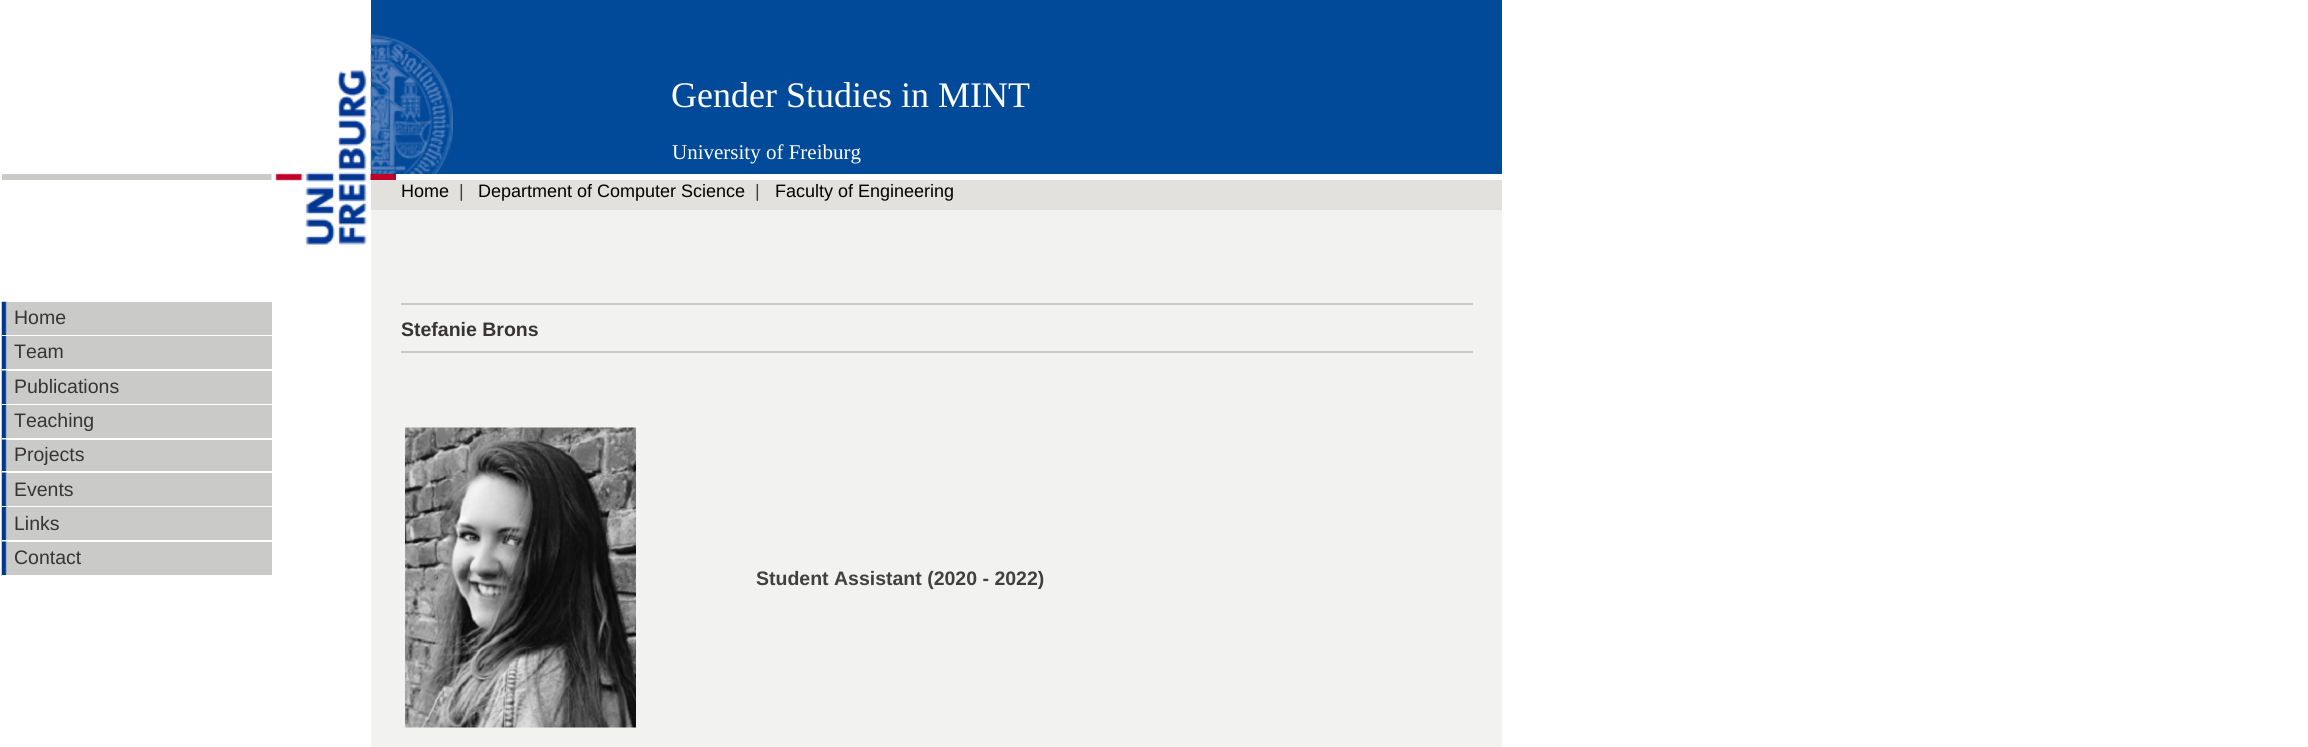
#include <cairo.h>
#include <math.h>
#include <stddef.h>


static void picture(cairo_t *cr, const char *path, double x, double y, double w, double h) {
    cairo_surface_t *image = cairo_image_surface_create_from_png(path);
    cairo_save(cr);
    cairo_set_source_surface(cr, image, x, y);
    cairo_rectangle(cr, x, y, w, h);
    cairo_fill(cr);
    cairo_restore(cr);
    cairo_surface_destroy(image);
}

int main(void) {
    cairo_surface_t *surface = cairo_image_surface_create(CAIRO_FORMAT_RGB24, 2308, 747);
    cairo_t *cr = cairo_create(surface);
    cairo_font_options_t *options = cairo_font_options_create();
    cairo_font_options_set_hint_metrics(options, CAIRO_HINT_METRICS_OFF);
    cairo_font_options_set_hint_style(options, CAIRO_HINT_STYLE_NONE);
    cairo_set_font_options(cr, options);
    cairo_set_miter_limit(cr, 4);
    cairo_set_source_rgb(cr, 1, 1, 1);
    cairo_paint(cr);
    cairo_set_source_rgb(cr, 0.792, 0.792, 0.784);
    cairo_rectangle(cr, 2, 174, 270, 6);
    cairo_fill(cr);
    cairo_rectangle(cr, 7, 302, 265, 33);
    cairo_fill(cr);
    picture(cr, "img1.png", 1, 301, 7, 35);
    cairo_set_source_rgb(cr, 1, 1, 1);
    cairo_rectangle(cr, 2, 335, 6, 1);
    cairo_fill(cr);
    cairo_select_font_face(cr, "Liberation Sans", CAIRO_FONT_SLANT_NORMAL, CAIRO_FONT_WEIGHT_NORMAL);
    cairo_set_font_size(cr, 19.5);
    cairo_set_source_rgb(cr, 0.212, 0.208, 0.204);
    cairo_move_to(cr, 14, 324);
    cairo_show_text(cr, "Home");
    cairo_set_source_rgb(cr, 0.792, 0.792, 0.784);
    cairo_rectangle(cr, 7, 336, 265, 33);
    cairo_fill(cr);
    picture(cr, "img2.png", 1, 336, 6, 35);
    cairo_set_source_rgb(cr, 1, 1, 1);
    cairo_rectangle(cr, 2, 369, 5, 2);
    cairo_fill(cr);
    cairo_set_source_rgb(cr, 0.212, 0.208, 0.204);
    cairo_move_to(cr, 14, 358);
    cairo_show_text(cr, "Team");
    cairo_set_source_rgb(cr, 0.792, 0.792, 0.784);
    cairo_rectangle(cr, 7, 371, 265, 33);
    cairo_fill(cr);
    picture(cr, "img3.png", 1, 370, 7, 35);
    cairo_set_source_rgb(cr, 1, 1, 1);
    cairo_rectangle(cr, 2, 404, 6, 1);
    cairo_fill(cr);
    cairo_set_source_rgb(cr, 0.212, 0.208, 0.204);
    cairo_move_to(cr, 14, 393);
    cairo_show_text(cr, "Publications");
    cairo_set_source_rgb(cr, 0.792, 0.792, 0.784);
    cairo_rectangle(cr, 7, 405, 265, 33);
    cairo_fill(cr);
    picture(cr, "img2.png", 1, 405, 6, 35);
    cairo_set_source_rgb(cr, 1, 1, 1);
    cairo_rectangle(cr, 2, 438, 5, 2);
    cairo_fill(cr);
    cairo_set_source_rgb(cr, 0.212, 0.208, 0.204);
    cairo_move_to(cr, 14, 427);
    cairo_show_text(cr, "Teaching");
    cairo_set_source_rgb(cr, 0.792, 0.792, 0.784);
    cairo_rectangle(cr, 7, 440, 265, 31);
    cairo_fill(cr);
    picture(cr, "img4.png", 1, 439, 7, 34);
    cairo_set_source_rgb(cr, 1, 1, 1);
    cairo_rectangle(cr, 2, 471, 6, 2);
    cairo_fill(cr);
    cairo_set_source_rgb(cr, 0.212, 0.208, 0.204);
    cairo_move_to(cr, 14, 461);
    cairo_show_text(cr, "Projects");
    cairo_set_source_rgb(cr, 0.792, 0.792, 0.784);
    cairo_rectangle(cr, 7, 473, 265, 33);
    cairo_fill(cr);
    picture(cr, "img3.png", 1, 472, 7, 35);
    cairo_set_source_rgb(cr, 1, 1, 1);
    cairo_rectangle(cr, 2, 506, 6, 1);
    cairo_fill(cr);
    cairo_set_source_rgb(cr, 0.212, 0.208, 0.204);
    cairo_move_to(cr, 14, 496);
    cairo_show_text(cr, "Events");
    cairo_set_source_rgb(cr, 0.792, 0.792, 0.784);
    cairo_rectangle(cr, 7, 507, 265, 33);
    cairo_fill(cr);
    picture(cr, "img2.png", 1, 507, 6, 35);
    cairo_set_source_rgb(cr, 1, 1, 1);
    cairo_rectangle(cr, 2, 540, 5, 2);
    cairo_fill(cr);
    cairo_set_source_rgb(cr, 0.212, 0.208, 0.204);
    cairo_move_to(cr, 14, 530);
    cairo_show_text(cr, "Links");
    cairo_set_source_rgb(cr, 0.792, 0.792, 0.784);
    cairo_rectangle(cr, 7, 542, 265, 33);
    cairo_fill(cr);
    picture(cr, "img3.png", 1, 541, 7, 35);
    cairo_set_source_rgb(cr, 1, 1, 1);
    cairo_rectangle(cr, 2, 575, 6, 1);
    cairo_fill(cr);
    cairo_set_source_rgb(cr, 0.212, 0.208, 0.204);
    cairo_move_to(cr, 14, 564);
    cairo_show_text(cr, "Contact");
    cairo_set_source_rgb(cr, 0.757, 0, 0.165);
    cairo_rectangle(cr, 370, 174, 26, 6);
    cairo_fill(cr);
    picture(cr, "img5.png", 271, 70, 100, 175);
    cairo_set_source_rgb(cr, 0.949, 0.953, 0.945);
    cairo_rectangle(cr, 371, 210, 1131, 537);
    cairo_fill(cr);
    cairo_set_source_rgb(cr, 0, 0.29, 0.6);
    cairo_rectangle(cr, 371, 0, 1131, 174);
    cairo_fill(cr);
    picture(cr, "img6.png", 370, 34, 83, 140);
    cairo_select_font_face(cr, "Liberation Serif", CAIRO_FONT_SLANT_NORMAL, CAIRO_FONT_WEIGHT_NORMAL);
    cairo_set_font_size(cr, 36);
    cairo_set_source_rgb(cr, 1, 1, 1);
    cairo_move_to(cr, 671, 107);
    cairo_show_text(cr, "Gender Studies in MINT");
    cairo_set_font_size(cr, 21);
    cairo_move_to(cr, 672, 159);
    cairo_show_text(cr, "University of Freiburg");
    cairo_set_source_rgb(cr, 0.886, 0.882, 0.867);
    cairo_rectangle(cr, 371, 180, 1131, 30);
    cairo_fill(cr);
    cairo_select_font_face(cr, "Liberation Sans", CAIRO_FONT_SLANT_NORMAL, CAIRO_FONT_WEIGHT_NORMAL);
    cairo_set_font_size(cr, 18);
    cairo_set_source_rgb(cr, 0, 0, 0);
    cairo_move_to(cr, 401, 197);
    cairo_show_text(cr, "Home");
    cairo_set_source_rgb(cr, 0.251, 0.251, 0.251);
    cairo_move_to(cr, 459, 197);
    cairo_show_text(cr, "|");
    cairo_set_source_rgb(cr, 0, 0, 0);
    cairo_move_to(cr, 478, 197);
    cairo_show_text(cr, "Department of Computer Science");
    cairo_set_source_rgb(cr, 0.251, 0.251, 0.251);
    cairo_move_to(cr, 755, 197);
    cairo_show_text(cr, "|");
    cairo_set_source_rgb(cr, 0, 0, 0);
    cairo_move_to(cr, 775, 197);
    cairo_show_text(cr, "Faculty of Engineering");
    cairo_set_source_rgb(cr, 0.788, 0.792, 0.784);
    cairo_rectangle(cr, 401, 303, 1072, 2);
    cairo_fill(cr);
    cairo_select_font_face(cr, "Liberation Sans", CAIRO_FONT_SLANT_NORMAL, CAIRO_FONT_WEIGHT_BOLD);
    cairo_set_font_size(cr, 19.5);
    cairo_set_source_rgb(cr, 0.212, 0.208, 0.204);
    cairo_move_to(cr, 401, 336);
    cairo_show_text(cr, "Stefanie Brons");
    cairo_set_source_rgb(cr, 0.788, 0.792, 0.784);
    cairo_rectangle(cr, 401, 351, 1072, 2);
    cairo_fill(cr);
    picture(cr, "img7.png", 405, 427, 231, 301);
    cairo_set_source_rgb(cr, 0.251, 0.251, 0.251);
    cairo_move_to(cr, 756, 585);
    cairo_show_text(cr, "Student Assistant (2020 - 2022)");
    cairo_surface_write_to_png(surface, "page.png");
    cairo_font_options_destroy(options);
    cairo_destroy(cr);
    cairo_surface_destroy(surface);
    return 0;
}
